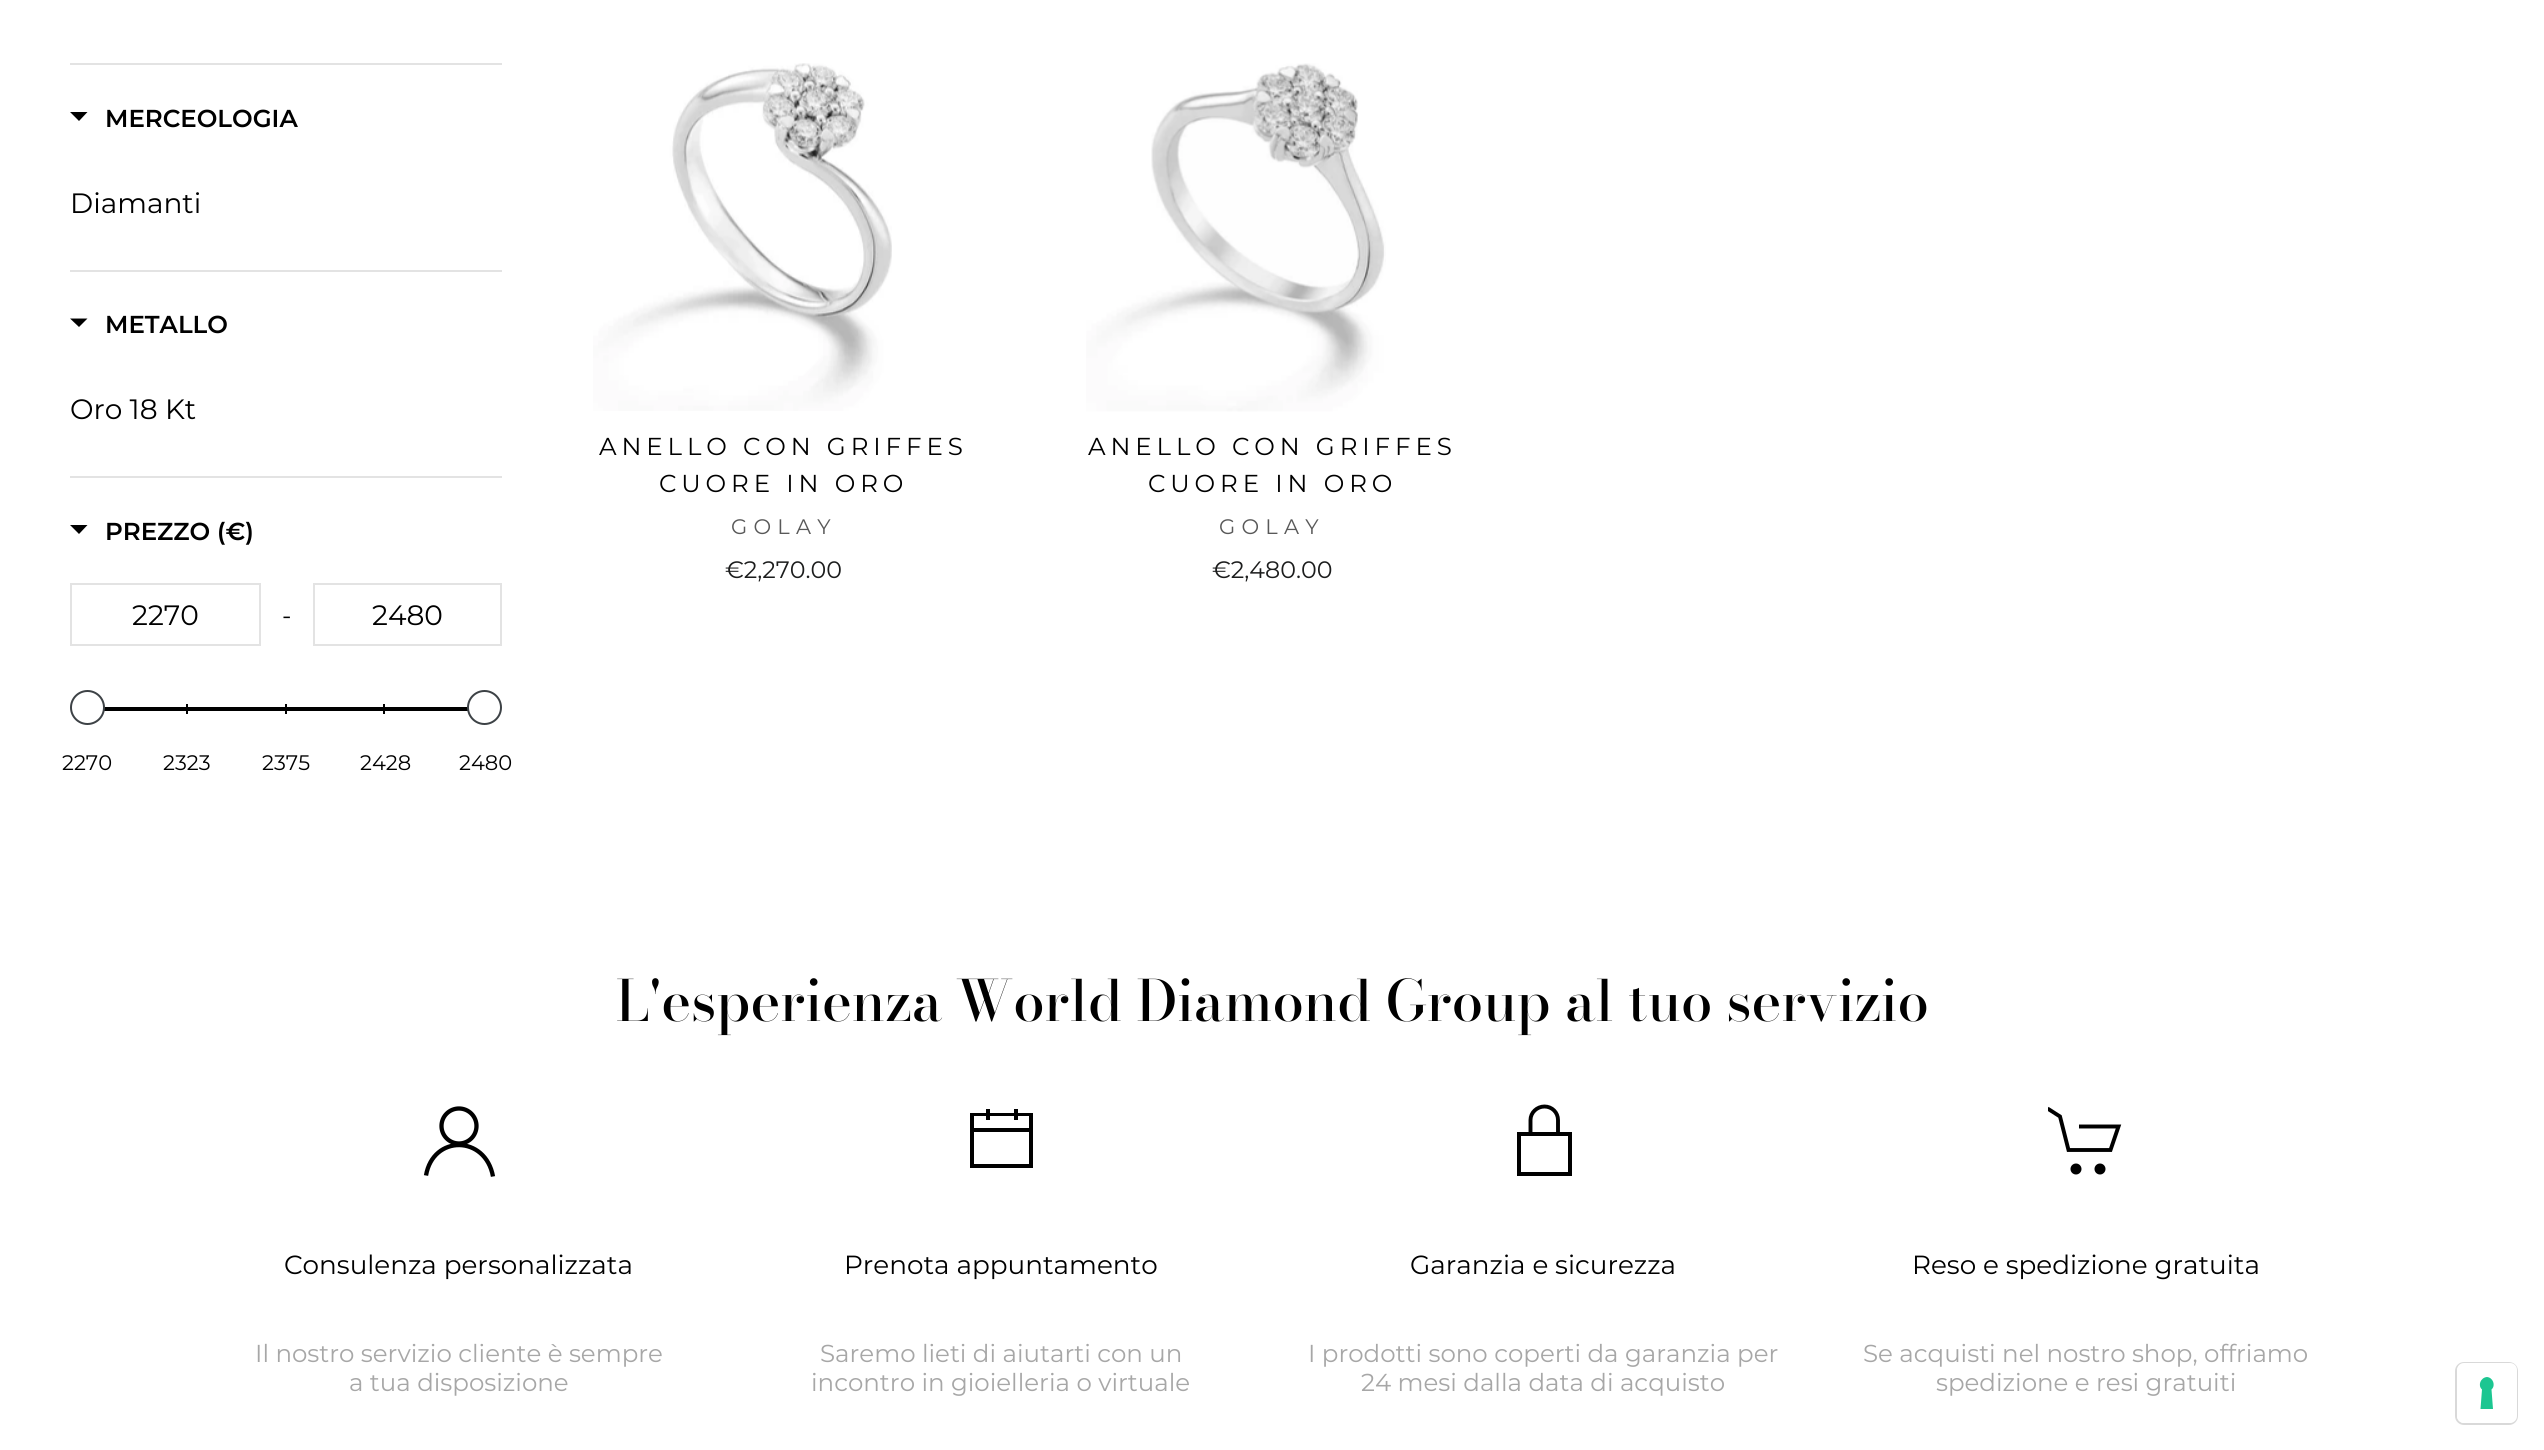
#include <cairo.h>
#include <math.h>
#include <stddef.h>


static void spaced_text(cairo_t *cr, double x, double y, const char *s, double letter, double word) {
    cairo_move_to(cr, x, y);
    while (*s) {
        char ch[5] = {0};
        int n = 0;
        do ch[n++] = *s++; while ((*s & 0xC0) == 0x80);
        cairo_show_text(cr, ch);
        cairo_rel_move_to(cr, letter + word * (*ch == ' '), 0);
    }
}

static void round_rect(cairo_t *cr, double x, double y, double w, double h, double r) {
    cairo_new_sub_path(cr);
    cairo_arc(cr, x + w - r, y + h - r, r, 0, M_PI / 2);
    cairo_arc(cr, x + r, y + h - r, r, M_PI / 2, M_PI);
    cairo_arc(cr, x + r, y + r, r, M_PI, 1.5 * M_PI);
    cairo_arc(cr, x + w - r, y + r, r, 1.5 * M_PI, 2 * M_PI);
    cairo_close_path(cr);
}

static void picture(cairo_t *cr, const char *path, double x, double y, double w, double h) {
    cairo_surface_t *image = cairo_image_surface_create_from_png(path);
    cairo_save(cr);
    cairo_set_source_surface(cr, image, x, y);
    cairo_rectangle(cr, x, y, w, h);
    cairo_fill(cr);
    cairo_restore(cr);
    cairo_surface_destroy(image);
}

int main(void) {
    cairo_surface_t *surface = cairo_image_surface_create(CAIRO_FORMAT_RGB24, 2544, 1450);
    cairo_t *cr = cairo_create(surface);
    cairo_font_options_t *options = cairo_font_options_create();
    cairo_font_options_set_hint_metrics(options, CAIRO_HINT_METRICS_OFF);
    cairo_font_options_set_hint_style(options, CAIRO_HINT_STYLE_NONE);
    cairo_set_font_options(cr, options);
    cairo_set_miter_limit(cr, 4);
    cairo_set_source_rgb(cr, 1, 1, 1);
    cairo_paint(cr);
    cairo_set_source_rgb(cr, 0.89, 0.89, 0.89);
    cairo_rectangle(cr, 70, 63, 432, 2);
    cairo_fill(cr);
    cairo_set_source_rgb(cr, 0, 0, 0);
    cairo_new_path(cr);
    cairo_move_to(cr, 70, 112);
    cairo_line_to(cr, 87.5, 112);
    cairo_line_to(cr, 79, 121);
    cairo_close_path(cr);
    cairo_fill(cr);
    cairo_select_font_face(cr, "Montserrat SemiBold", CAIRO_FONT_SLANT_NORMAL, CAIRO_FONT_WEIGHT_NORMAL);
    cairo_set_font_size(cr, 24.5);
    cairo_move_to(cr, 105, 127);
    cairo_show_text(cr, "MERCEOLOGIA");
    cairo_select_font_face(cr, "Montserrat", CAIRO_FONT_SLANT_NORMAL, CAIRO_FONT_WEIGHT_NORMAL);
    cairo_set_font_size(cr, 28);
    cairo_move_to(cr, 70, 213);
    cairo_show_text(cr, "Diamanti");
    cairo_set_source_rgb(cr, 0.89, 0.89, 0.89);
    cairo_rectangle(cr, 70, 270, 432, 2);
    cairo_fill(cr);
    cairo_set_source_rgb(cr, 0, 0, 0);
    cairo_new_path(cr);
    cairo_move_to(cr, 70, 318.5);
    cairo_line_to(cr, 87.5, 318.5);
    cairo_line_to(cr, 79, 327);
    cairo_close_path(cr);
    cairo_fill(cr);
    cairo_select_font_face(cr, "Montserrat SemiBold", CAIRO_FONT_SLANT_NORMAL, CAIRO_FONT_WEIGHT_NORMAL);
    cairo_set_font_size(cr, 24.5);
    cairo_move_to(cr, 105, 333);
    cairo_show_text(cr, "METALLO");
    cairo_select_font_face(cr, "Montserrat", CAIRO_FONT_SLANT_NORMAL, CAIRO_FONT_WEIGHT_NORMAL);
    cairo_set_font_size(cr, 28);
    cairo_move_to(cr, 70, 419);
    cairo_show_text(cr, "Oro 18 Kt");
    cairo_set_source_rgb(cr, 0.89, 0.89, 0.89);
    cairo_rectangle(cr, 70, 476, 432, 2);
    cairo_fill(cr);
    cairo_set_source_rgb(cr, 0, 0, 0);
    cairo_new_path(cr);
    cairo_move_to(cr, 70, 525);
    cairo_line_to(cr, 87.5, 525);
    cairo_line_to(cr, 79, 534);
    cairo_close_path(cr);
    cairo_fill(cr);
    cairo_select_font_face(cr, "Montserrat SemiBold", CAIRO_FONT_SLANT_NORMAL, CAIRO_FONT_WEIGHT_NORMAL);
    cairo_set_font_size(cr, 24.5);
    cairo_move_to(cr, 105, 540);
    cairo_show_text(cr, "PREZZO (€)");
    cairo_rectangle(cr, 71, 584, 189, 61);
    cairo_set_source_rgb(cr, 0.89, 0.89, 0.89);
    cairo_stroke(cr);
    cairo_select_font_face(cr, "Montserrat", CAIRO_FONT_SLANT_NORMAL, CAIRO_FONT_WEIGHT_NORMAL);
    cairo_set_font_size(cr, 28);
    cairo_set_source_rgb(cr, 0, 0, 0);
    cairo_move_to(cr, 132, 625);
    cairo_show_text(cr, "2270");
    cairo_set_font_size(cr, 24.5);
    cairo_move_to(cr, 282, 624);
    cairo_show_text(cr, "-");
    cairo_rectangle(cr, 314, 584, 187, 61);
    cairo_set_source_rgb(cr, 0.89, 0.89, 0.89);
    cairo_stroke(cr);
    cairo_set_font_size(cr, 28);
    cairo_set_source_rgb(cr, 0, 0, 0);
    cairo_move_to(cr, 372, 625);
    cairo_show_text(cr, "2480");
    cairo_rectangle(cr, 186, 704, 2, 10);
    cairo_fill(cr);
    cairo_rectangle(cr, 285, 704, 2, 10);
    cairo_fill(cr);
    cairo_rectangle(cr, 383, 704, 2, 10);
    cairo_fill(cr);
    cairo_rectangle(cr, 104, 707, 364, 4);
    cairo_fill(cr);
    cairo_set_source_rgb(cr, 1, 1, 1);
    cairo_arc(cr, 87.5, 707.5, 16.5, 0, 2 * M_PI);
    cairo_fill_preserve(cr);
    cairo_set_source_rgb(cr, 0.239, 0.259, 0.275);
    cairo_stroke(cr);
    cairo_set_source_rgb(cr, 1, 1, 1);
    cairo_arc(cr, 484.5, 707.5, 16.5, 0, 2 * M_PI);
    cairo_fill_preserve(cr);
    cairo_set_source_rgb(cr, 0.239, 0.259, 0.275);
    cairo_stroke(cr);
    cairo_set_font_size(cr, 21);
    cairo_set_source_rgb(cr, 0, 0, 0);
    cairo_move_to(cr, 62, 770);
    cairo_show_text(cr, "2270");
    cairo_move_to(cr, 163, 770);
    cairo_show_text(cr, "2323");
    cairo_move_to(cr, 262, 770);
    cairo_show_text(cr, "2375");
    cairo_move_to(cr, 360, 770);
    cairo_show_text(cr, "2428");
    cairo_move_to(cr, 459, 770);
    cairo_show_text(cr, "2480");
    picture(cr, "img1.png", 593, 63, 299, 348);
    cairo_set_font_size(cr, 24.5);
    spaced_text(cr, 599, 455, "ANELLO CON GRIFFES", 4.9, 0);
    spaced_text(cr, 659, 492, "CUORE IN ORO", 4.9, 0);
    cairo_set_font_size(cr, 21);
    cairo_set_source_rgb(cr, 0.349, 0.349, 0.349);
    spaced_text(cr, 731, 534, "GOLAY", 6.25, 0);
    cairo_set_font_size(cr, 23.75);
    cairo_set_source_rgb(cr, 0.11, 0.114, 0.114);
    cairo_move_to(cr, 725, 578);
    cairo_show_text(cr, "€2,270.00");
    picture(cr, "img2.png", 1086, 63, 300, 349);
    cairo_set_font_size(cr, 24.5);
    cairo_set_source_rgb(cr, 0, 0, 0);
    spaced_text(cr, 1088, 455, "ANELLO CON GRIFFES", 4.9, 0);
    spaced_text(cr, 1148, 492, "CUORE IN ORO", 4.9, 0);
    cairo_set_font_size(cr, 21);
    cairo_set_source_rgb(cr, 0.349, 0.349, 0.349);
    spaced_text(cr, 1219, 534, "GOLAY", 6.25, 0);
    cairo_set_font_size(cr, 23.75);
    cairo_set_source_rgb(cr, 0.11, 0.114, 0.114);
    cairo_move_to(cr, 1212, 578);
    cairo_show_text(cr, "€2,480.00");
    cairo_select_font_face(cr, "Bodoni Moda Medium", CAIRO_FONT_SLANT_NORMAL, CAIRO_FONT_WEIGHT_NORMAL);
    cairo_set_font_size(cr, 56.35);
    cairo_set_source_rgb(cr, 0, 0, 0);
    cairo_move_to(cr, 616, 1021);
    cairo_show_text(cr, "L'esperienza World Diamond Group al tuo servizio");
    cairo_new_path(cr);
    cairo_arc(cr, 459, 1126, 17.5, 0, 2 * M_PI);
    cairo_set_line_width(cr, 4.3);
    cairo_stroke(cr);
    cairo_new_path(cr);
    cairo_move_to(cr, 426, 1175.5);
    cairo_curve_to(cr, 433, 1134.5, 485.5, 1135, 493, 1176.5);
    cairo_stroke(cr);
    cairo_select_font_face(cr, "Montserrat", CAIRO_FONT_SLANT_NORMAL, CAIRO_FONT_WEIGHT_NORMAL);
    cairo_set_font_size(cr, 26.25);
    cairo_move_to(cr, 284, 1274);
    cairo_show_text(cr, "Consulenza personalizzata");
    cairo_set_font_size(cr, 24.5);
    cairo_set_source_rgb(cr, 0.655, 0.655, 0.655);
    cairo_move_to(cr, 255, 1362);
    cairo_show_text(cr, "Il nostro servizio cliente è sempre");
    cairo_move_to(cr, 349, 1391);
    cairo_show_text(cr, "a tua disposizione");
    cairo_set_source_rgb(cr, 0, 0, 0);
    cairo_new_path(cr);
    cairo_move_to(cr, 970, 1113);
    cairo_line_to(cr, 970, 1168);
    cairo_line_to(cr, 1033, 1168);
    cairo_line_to(cr, 1033, 1113);
    cairo_close_path(cr);
    cairo_move_to(cr, 1029, 1164);
    cairo_line_to(cr, 974, 1164);
    cairo_line_to(cr, 974, 1132);
    cairo_line_to(cr, 1029, 1132);
    cairo_close_path(cr);
    cairo_move_to(cr, 1029, 1128);
    cairo_line_to(cr, 974, 1128);
    cairo_line_to(cr, 974, 1116);
    cairo_line_to(cr, 1029, 1116);
    cairo_close_path(cr);
    cairo_fill(cr);
    cairo_rectangle(cr, 986, 1109, 4, 11);
    cairo_fill(cr);
    cairo_rectangle(cr, 1014, 1109, 4, 11);
    cairo_fill(cr);
    cairo_set_font_size(cr, 26.25);
    cairo_move_to(cr, 844, 1274);
    cairo_show_text(cr, "Prenota appuntamento");
    cairo_set_font_size(cr, 24.5);
    cairo_set_source_rgb(cr, 0.655, 0.655, 0.655);
    cairo_move_to(cr, 820, 1362);
    cairo_show_text(cr, "Saremo lieti di aiutarti con un");
    cairo_move_to(cr, 811, 1391);
    cairo_show_text(cr, "incontro in gioielleria o virtuale");
    cairo_new_path(cr);
    cairo_move_to(cr, 1530.5, 1132);
    cairo_line_to(cr, 1530.5, 1120);
    cairo_curve_to(cr, 1530.5, 1112.5, 1537, 1106.5, 1544.5, 1106.5);
    cairo_curve_to(cr, 1552, 1106.5, 1558, 1112.5, 1558, 1120);
    cairo_line_to(cr, 1558, 1132);
    cairo_set_source_rgb(cr, 0, 0, 0);
    cairo_set_line_width(cr, 3.9);
    cairo_stroke(cr);
    cairo_rectangle(cr, 1519, 1134, 51, 40);
    cairo_set_line_width(cr, 4);
    cairo_stroke(cr);
    cairo_set_font_size(cr, 26.25);
    cairo_move_to(cr, 1410, 1274);
    cairo_show_text(cr, "Garanzia e sicurezza");
    cairo_set_font_size(cr, 24.5);
    cairo_set_source_rgb(cr, 0.655, 0.655, 0.655);
    cairo_move_to(cr, 1308, 1362);
    cairo_show_text(cr, "I prodotti sono coperti da garanzia per");
    cairo_move_to(cr, 1361, 1391);
    cairo_show_text(cr, "24 mesi dalla data di acquisto");
    cairo_save(cr);
    cairo_rectangle(cr, 2048, 1101, 78, 79);
    cairo_clip(cr);
    cairo_new_path(cr);
    cairo_move_to(cr, 2047.5, 1108.5);
    cairo_line_to(cr, 2060, 1116.5);
    cairo_line_to(cr, 2068.5, 1150);
    cairo_line_to(cr, 2110.5, 1150);
    cairo_line_to(cr, 2118.5, 1126.5);
    cairo_line_to(cr, 2079, 1126.5);
    cairo_set_source_rgb(cr, 0, 0, 0);
    cairo_set_line_width(cr, 3.9);
    cairo_stroke(cr);
    cairo_restore(cr);
    cairo_set_source_rgb(cr, 0, 0, 0);
    cairo_arc(cr, 2076, 1169, 5.5, 0, 2 * M_PI);
    cairo_fill(cr);
    cairo_arc(cr, 2100, 1169, 5.5, 0, 2 * M_PI);
    cairo_fill(cr);
    cairo_set_font_size(cr, 26.25);
    cairo_move_to(cr, 1912, 1274);
    cairo_show_text(cr, "Reso e spedizione gratuita");
    cairo_set_font_size(cr, 24.5);
    cairo_set_source_rgb(cr, 0.655, 0.655, 0.655);
    cairo_move_to(cr, 1863, 1362);
    cairo_show_text(cr, "Se acquisti nel nostro shop, offriamo");
    cairo_move_to(cr, 1936, 1391);
    cairo_show_text(cr, "spedizione e resi gratuiti");
    round_rect(cr, 2456, 1363, 61, 61, 8);
    cairo_set_source_rgb(cr, 0.851, 0.851, 0.851);
    cairo_set_line_width(cr, 2);
    cairo_stroke(cr);
    cairo_set_source_rgb(cr, 1, 1, 1);
    round_rect(cr, 2457, 1363, 60, 60, 7);
    cairo_fill(cr);
    cairo_set_source_rgb(cr, 0.11, 0.776, 0.569);
    cairo_set_fill_rule(cr, CAIRO_FILL_RULE_EVEN_ODD);
    cairo_new_path(cr);
    cairo_move_to(cr, 2487, 1377);
    cairo_curve_to(cr, 2493, 1377.5, 2496, 1385.5, 2491.5, 1389.5);
    cairo_line_to(cr, 2493, 1409);
    cairo_line_to(cr, 2480.5, 1409);
    cairo_line_to(cr, 2482, 1389.5);
    cairo_curve_to(cr, 2477.5, 1385.5, 2480.5, 1377.5, 2487, 1377);
    cairo_close_path(cr);
    cairo_fill(cr);
    cairo_surface_write_to_png(surface, "page.png");
    cairo_font_options_destroy(options);
    cairo_destroy(cr);
    cairo_surface_destroy(surface);
    return 0;
}
